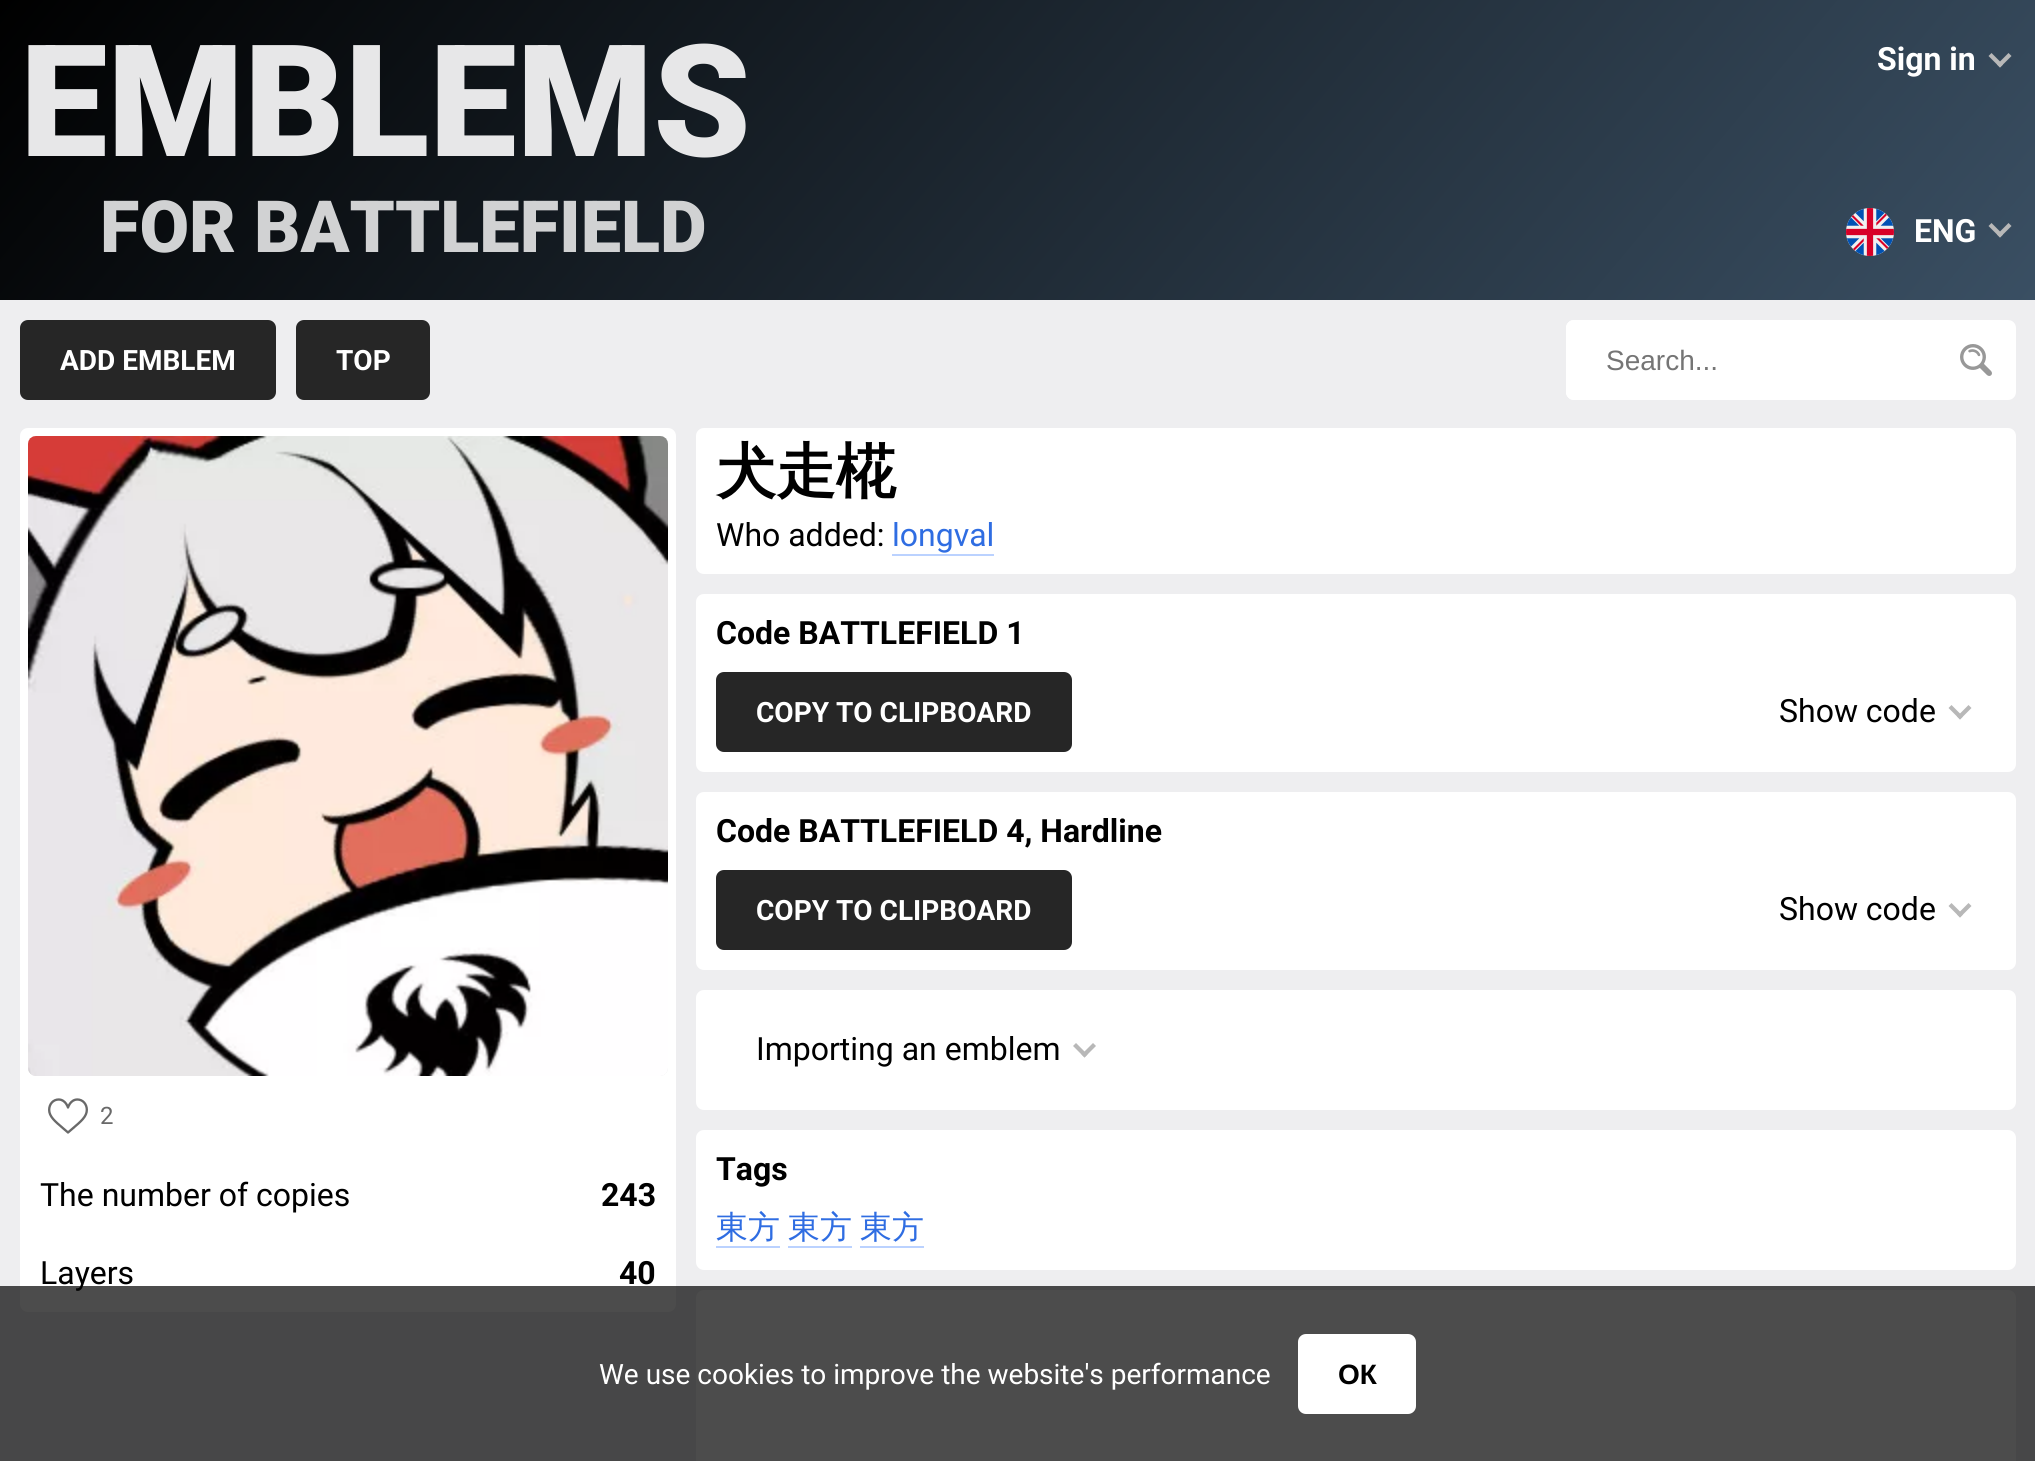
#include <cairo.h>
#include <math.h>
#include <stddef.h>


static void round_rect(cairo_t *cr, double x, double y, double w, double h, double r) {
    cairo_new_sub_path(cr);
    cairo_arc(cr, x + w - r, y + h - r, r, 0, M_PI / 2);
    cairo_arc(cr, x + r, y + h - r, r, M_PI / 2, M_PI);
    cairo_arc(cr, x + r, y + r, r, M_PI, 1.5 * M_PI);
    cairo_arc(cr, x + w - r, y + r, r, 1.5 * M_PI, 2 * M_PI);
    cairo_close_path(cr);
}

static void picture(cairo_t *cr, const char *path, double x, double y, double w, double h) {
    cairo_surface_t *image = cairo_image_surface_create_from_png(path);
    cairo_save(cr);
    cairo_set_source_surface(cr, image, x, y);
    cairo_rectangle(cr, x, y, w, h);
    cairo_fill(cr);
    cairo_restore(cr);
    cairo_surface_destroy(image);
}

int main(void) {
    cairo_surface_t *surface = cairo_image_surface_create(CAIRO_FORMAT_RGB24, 2035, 1461);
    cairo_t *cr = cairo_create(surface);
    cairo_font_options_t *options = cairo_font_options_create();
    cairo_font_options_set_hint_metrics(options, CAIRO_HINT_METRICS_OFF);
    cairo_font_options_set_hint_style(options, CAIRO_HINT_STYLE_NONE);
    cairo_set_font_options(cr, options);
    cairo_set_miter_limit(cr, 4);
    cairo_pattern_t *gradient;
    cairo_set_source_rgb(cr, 0.933, 0.933, 0.941);
    cairo_paint(cr);
    gradient = cairo_pattern_create_linear(347, -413, 1689, 713);
    cairo_pattern_add_color_stop_rgba(gradient, 0, 0, 0, 0, 1);
    cairo_pattern_add_color_stop_rgba(gradient, 1, 0.227, 0.31, 0.388, 1);
    cairo_set_source(cr, gradient);
    cairo_pattern_destroy(gradient);
    cairo_rectangle(cr, 0, 0, 2035, 300);
    cairo_fill(cr);
    cairo_select_font_face(cr, "Roboto Black", CAIRO_FONT_SLANT_NORMAL, CAIRO_FONT_WEIGHT_NORMAL);
    cairo_set_font_size(cr, 156);
    cairo_set_source_rgb(cr, 0.906, 0.906, 0.91);
    cairo_move_to(cr, 20, 156);
    cairo_show_text(cr, "EMBLEMS");
    cairo_set_font_size(cr, 72);
    cairo_set_source_rgb(cr, 0.82, 0.824, 0.827);
    cairo_move_to(cr, 100, 252);
    cairo_show_text(cr, "FOR BATTLEFIELD");
    cairo_select_font_face(cr, "Roboto", CAIRO_FONT_SLANT_NORMAL, CAIRO_FONT_WEIGHT_BOLD);
    cairo_set_font_size(cr, 32);
    cairo_set_source_rgb(cr, 1, 1, 1);
    cairo_move_to(cr, 1877, 70);
    cairo_show_text(cr, "Sign in");
    cairo_set_source_rgb(cr, 0.722, 0.722, 0.722);
    cairo_new_path(cr);
    cairo_move_to(cr, 2008.5, 53);
    cairo_line_to(cr, 2011.5, 56);
    cairo_line_to(cr, 2000, 67.5);
    cairo_line_to(cr, 1997, 64.5);
    cairo_close_path(cr);
    cairo_fill(cr);
    cairo_new_path(cr);
    cairo_move_to(cr, 1991.5, 53);
    cairo_line_to(cr, 2003, 64.5);
    cairo_line_to(cr, 2000, 67.5);
    cairo_line_to(cr, 1988.5, 56);
    cairo_close_path(cr);
    cairo_fill(cr);
    picture(cr, "img1.png", 1846, 208, 48, 48);
    cairo_set_source_rgb(cr, 1, 1, 1);
    cairo_move_to(cr, 1914, 242);
    cairo_show_text(cr, "ENG");
    cairo_set_source_rgb(cr, 0.722, 0.722, 0.722);
    cairo_new_path(cr);
    cairo_move_to(cr, 2008.5, 223);
    cairo_line_to(cr, 2011.5, 226);
    cairo_line_to(cr, 2000, 237.5);
    cairo_line_to(cr, 1997, 234.5);
    cairo_close_path(cr);
    cairo_fill(cr);
    cairo_new_path(cr);
    cairo_move_to(cr, 1991.5, 223);
    cairo_line_to(cr, 2003, 234.5);
    cairo_line_to(cr, 2000, 237.5);
    cairo_line_to(cr, 1988.5, 226);
    cairo_close_path(cr);
    cairo_fill(cr);
    cairo_set_source_rgb(cr, 0.149, 0.149, 0.149);
    round_rect(cr, 20, 320, 256, 80, 8);
    cairo_fill(cr);
    cairo_set_font_size(cr, 28);
    cairo_set_source_rgb(cr, 1, 1, 1);
    cairo_move_to(cr, 60, 370);
    cairo_show_text(cr, "ADD EMBLEM");
    cairo_set_source_rgb(cr, 0.149, 0.149, 0.149);
    round_rect(cr, 296, 320, 134, 80, 8);
    cairo_fill(cr);
    cairo_set_source_rgb(cr, 1, 1, 1);
    cairo_move_to(cr, 336, 370);
    cairo_show_text(cr, "TOP");
    round_rect(cr, 1566, 320, 450, 80, 8);
    cairo_fill(cr);
    round_rect(cr, 1566, 320, 370, 80, 8);
    cairo_fill(cr);
    cairo_select_font_face(cr, "Liberation Sans", CAIRO_FONT_SLANT_NORMAL, CAIRO_FONT_WEIGHT_NORMAL);
    cairo_set_source_rgb(cr, 0.459, 0.459, 0.459);
    cairo_move_to(cr, 1606, 370);
    cairo_show_text(cr, "Search...");
    picture(cr, "img2.png", 1960, 344, 32, 32);
    cairo_set_source_rgb(cr, 1, 1, 1);
    round_rect(cr, 20, 428, 656, 884, 8);
    cairo_fill(cr);
    cairo_set_source_rgb(cr, 0.925, 0.925, 0.925);
    round_rect(cr, 28, 436, 640, 640, 8);
    cairo_fill(cr);
    picture(cr, "img3.png", 28, 436, 640, 640);
    picture(cr, "img4.png", 48, 1098, 40, 36);
    cairo_select_font_face(cr, "Roboto", CAIRO_FONT_SLANT_NORMAL, CAIRO_FONT_WEIGHT_NORMAL);
    cairo_set_font_size(cr, 24);
    cairo_set_source_rgb(cr, 0.412, 0.412, 0.412);
    cairo_move_to(cr, 100, 1124);
    cairo_show_text(cr, "2");
    cairo_set_font_size(cr, 32);
    cairo_set_source_rgb(cr, 0, 0, 0);
    cairo_move_to(cr, 40, 1206);
    cairo_show_text(cr, "The number of copies");
    cairo_select_font_face(cr, "Roboto", CAIRO_FONT_SLANT_NORMAL, CAIRO_FONT_WEIGHT_BOLD);
    cairo_move_to(cr, 601, 1206);
    cairo_show_text(cr, "243");
    cairo_select_font_face(cr, "Roboto", CAIRO_FONT_SLANT_NORMAL, CAIRO_FONT_WEIGHT_NORMAL);
    cairo_move_to(cr, 40, 1284);
    cairo_show_text(cr, "Layers");
    cairo_select_font_face(cr, "Roboto", CAIRO_FONT_SLANT_NORMAL, CAIRO_FONT_WEIGHT_BOLD);
    cairo_move_to(cr, 619, 1284);
    cairo_show_text(cr, "40");
    cairo_set_source_rgb(cr, 1, 1, 1);
    round_rect(cr, 696, 428, 1320, 146, 8);
    cairo_fill(cr);
    cairo_select_font_face(cr, "WenQuanYi Zen Hei", CAIRO_FONT_SLANT_NORMAL, CAIRO_FONT_WEIGHT_BOLD);
    cairo_set_font_size(cr, 60);
    cairo_set_source_rgb(cr, 0, 0, 0);
    cairo_move_to(cr, 716, 492);
    cairo_show_text(cr, "犬走椛");
    cairo_select_font_face(cr, "Roboto", CAIRO_FONT_SLANT_NORMAL, CAIRO_FONT_WEIGHT_NORMAL);
    cairo_set_font_size(cr, 32);
    cairo_move_to(cr, 716, 546);
    cairo_show_text(cr, "Who added:");
    cairo_set_source_rgb(cr, 0.184, 0.427, 0.886);
    cairo_move_to(cr, 892, 546);
    cairo_show_text(cr, "longval");
    cairo_set_source_rgb(cr, 0.733, 0.824, 1);
    cairo_rectangle(cr, 892, 554, 102, 2);
    cairo_fill(cr);
    cairo_set_source_rgb(cr, 1, 1, 1);
    round_rect(cr, 696, 594, 1320, 178, 8);
    cairo_fill(cr);
    cairo_select_font_face(cr, "Roboto", CAIRO_FONT_SLANT_NORMAL, CAIRO_FONT_WEIGHT_BOLD);
    cairo_set_source_rgb(cr, 0, 0, 0);
    cairo_move_to(cr, 716, 644);
    cairo_show_text(cr, "Code BATTLEFIELD 1");
    cairo_set_source_rgb(cr, 0.149, 0.149, 0.149);
    round_rect(cr, 716, 672, 356, 80, 8);
    cairo_fill(cr);
    cairo_set_font_size(cr, 28);
    cairo_set_source_rgb(cr, 1, 1, 1);
    cairo_move_to(cr, 756, 722);
    cairo_show_text(cr, "COPY TO CLIPBOARD");
    cairo_select_font_face(cr, "Roboto", CAIRO_FONT_SLANT_NORMAL, CAIRO_FONT_WEIGHT_NORMAL);
    cairo_set_font_size(cr, 32);
    cairo_set_source_rgb(cr, 0, 0, 0);
    cairo_move_to(cr, 1779, 722);
    cairo_show_text(cr, "Show code");
    cairo_set_source_rgb(cr, 0.722, 0.722, 0.722);
    cairo_new_path(cr);
    cairo_move_to(cr, 1968.5, 705);
    cairo_line_to(cr, 1971.5, 708);
    cairo_line_to(cr, 1960, 719.5);
    cairo_line_to(cr, 1957, 716.5);
    cairo_close_path(cr);
    cairo_fill(cr);
    cairo_new_path(cr);
    cairo_move_to(cr, 1951.5, 705);
    cairo_line_to(cr, 1963, 716.5);
    cairo_line_to(cr, 1960, 719.5);
    cairo_line_to(cr, 1948.5, 708);
    cairo_close_path(cr);
    cairo_fill(cr);
    cairo_set_source_rgb(cr, 1, 1, 1);
    round_rect(cr, 696, 792, 1320, 178, 8);
    cairo_fill(cr);
    cairo_select_font_face(cr, "Roboto", CAIRO_FONT_SLANT_NORMAL, CAIRO_FONT_WEIGHT_BOLD);
    cairo_set_source_rgb(cr, 0, 0, 0);
    cairo_move_to(cr, 716, 842);
    cairo_show_text(cr, "Code BATTLEFIELD 4, Hardline");
    cairo_set_source_rgb(cr, 0.149, 0.149, 0.149);
    round_rect(cr, 716, 870, 356, 80, 8);
    cairo_fill(cr);
    cairo_set_font_size(cr, 28);
    cairo_set_source_rgb(cr, 1, 1, 1);
    cairo_move_to(cr, 756, 920);
    cairo_show_text(cr, "COPY TO CLIPBOARD");
    cairo_select_font_face(cr, "Roboto", CAIRO_FONT_SLANT_NORMAL, CAIRO_FONT_WEIGHT_NORMAL);
    cairo_set_font_size(cr, 32);
    cairo_set_source_rgb(cr, 0, 0, 0);
    cairo_move_to(cr, 1779, 920);
    cairo_show_text(cr, "Show code");
    cairo_set_source_rgb(cr, 0.722, 0.722, 0.722);
    cairo_new_path(cr);
    cairo_move_to(cr, 1968.5, 903);
    cairo_line_to(cr, 1971.5, 906);
    cairo_line_to(cr, 1960, 917.5);
    cairo_line_to(cr, 1957, 914.5);
    cairo_close_path(cr);
    cairo_fill(cr);
    cairo_new_path(cr);
    cairo_move_to(cr, 1951.5, 903);
    cairo_line_to(cr, 1963, 914.5);
    cairo_line_to(cr, 1960, 917.5);
    cairo_line_to(cr, 1948.5, 906);
    cairo_close_path(cr);
    cairo_fill(cr);
    cairo_set_source_rgb(cr, 1, 1, 1);
    round_rect(cr, 696, 990, 1320, 120, 8);
    cairo_fill(cr);
    cairo_set_source_rgb(cr, 0, 0, 0);
    cairo_move_to(cr, 756, 1060);
    cairo_show_text(cr, "Importing an emblem");
    cairo_set_source_rgb(cr, 0.722, 0.722, 0.722);
    cairo_new_path(cr);
    cairo_move_to(cr, 1093, 1043);
    cairo_line_to(cr, 1096, 1046);
    cairo_line_to(cr, 1084.5, 1057.5);
    cairo_line_to(cr, 1081.5, 1054.5);
    cairo_close_path(cr);
    cairo_fill(cr);
    cairo_new_path(cr);
    cairo_move_to(cr, 1076, 1043);
    cairo_line_to(cr, 1087.5, 1054.5);
    cairo_line_to(cr, 1084.5, 1057.5);
    cairo_line_to(cr, 1073, 1046);
    cairo_close_path(cr);
    cairo_fill(cr);
    cairo_set_source_rgb(cr, 1, 1, 1);
    round_rect(cr, 696, 1130, 1320, 140, 8);
    cairo_fill(cr);
    cairo_select_font_face(cr, "Roboto", CAIRO_FONT_SLANT_NORMAL, CAIRO_FONT_WEIGHT_BOLD);
    cairo_set_source_rgb(cr, 0, 0, 0);
    cairo_move_to(cr, 716, 1180);
    cairo_show_text(cr, "Tags");
    cairo_select_font_face(cr, "WenQuanYi Zen Hei Medium", CAIRO_FONT_SLANT_NORMAL, CAIRO_FONT_WEIGHT_NORMAL);
    cairo_set_source_rgb(cr, 0.184, 0.427, 0.886);
    cairo_move_to(cr, 716, 1238);
    cairo_show_text(cr, "東方");
    cairo_set_source_rgb(cr, 0.733, 0.824, 1);
    cairo_rectangle(cr, 716, 1246, 64, 2);
    cairo_fill(cr);
    cairo_set_source_rgb(cr, 0.184, 0.427, 0.886);
    cairo_move_to(cr, 788, 1238);
    cairo_show_text(cr, "東方");
    cairo_set_source_rgb(cr, 0.733, 0.824, 1);
    cairo_rectangle(cr, 788, 1246, 64, 2);
    cairo_fill(cr);
    cairo_set_source_rgb(cr, 0.184, 0.427, 0.886);
    cairo_move_to(cr, 860, 1238);
    cairo_show_text(cr, "東方");
    cairo_set_source_rgb(cr, 0.733, 0.824, 1);
    cairo_rectangle(cr, 860, 1246, 64, 2);
    cairo_fill(cr);
    cairo_set_source_rgb(cr, 1, 1, 1);
    round_rect(cr, 696, 1290, 1320, 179, 8);
    cairo_fill(cr);
    cairo_set_source_rgba(cr, 0, 0, 0, 0.7);
    cairo_rectangle(cr, 0, 1286, 2035, 175);
    cairo_fill(cr);
    cairo_select_font_face(cr, "Roboto", CAIRO_FONT_SLANT_NORMAL, CAIRO_FONT_WEIGHT_NORMAL);
    cairo_set_font_size(cr, 28);
    cairo_set_source_rgb(cr, 1, 1, 1);
    cairo_move_to(cr, 599, 1384);
    cairo_show_text(cr, "We use cookies to improve the website's performance");
    round_rect(cr, 1298, 1334, 118, 80, 8);
    cairo_fill(cr);
    cairo_select_font_face(cr, "Liberation Sans", CAIRO_FONT_SLANT_NORMAL, CAIRO_FONT_WEIGHT_BOLD);
    cairo_set_source_rgb(cr, 0, 0, 0);
    cairo_move_to(cr, 1338, 1384);
    cairo_show_text(cr, "ОК");
    cairo_surface_write_to_png(surface, "page.png");
    cairo_font_options_destroy(options);
    cairo_destroy(cr);
    cairo_surface_destroy(surface);
    return 0;
}
